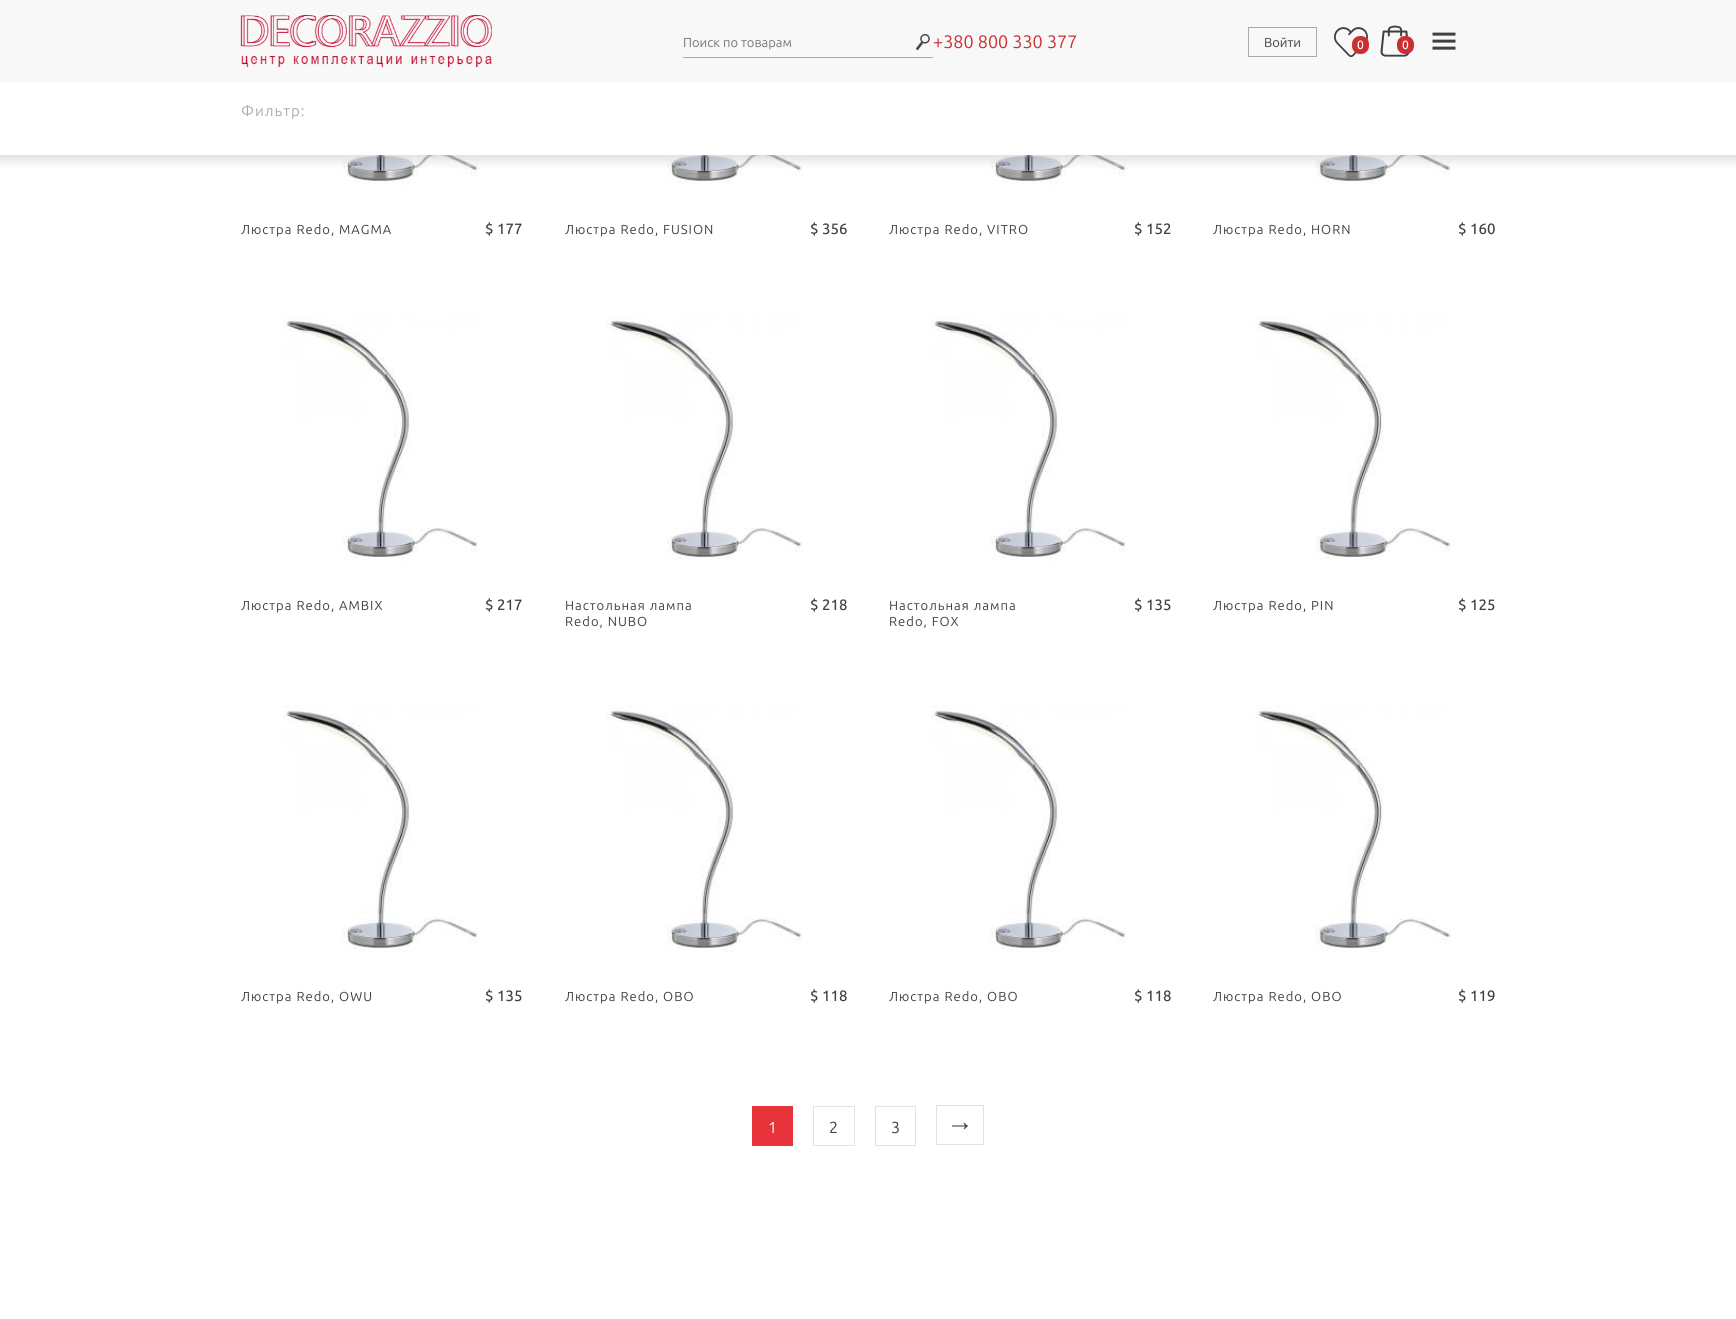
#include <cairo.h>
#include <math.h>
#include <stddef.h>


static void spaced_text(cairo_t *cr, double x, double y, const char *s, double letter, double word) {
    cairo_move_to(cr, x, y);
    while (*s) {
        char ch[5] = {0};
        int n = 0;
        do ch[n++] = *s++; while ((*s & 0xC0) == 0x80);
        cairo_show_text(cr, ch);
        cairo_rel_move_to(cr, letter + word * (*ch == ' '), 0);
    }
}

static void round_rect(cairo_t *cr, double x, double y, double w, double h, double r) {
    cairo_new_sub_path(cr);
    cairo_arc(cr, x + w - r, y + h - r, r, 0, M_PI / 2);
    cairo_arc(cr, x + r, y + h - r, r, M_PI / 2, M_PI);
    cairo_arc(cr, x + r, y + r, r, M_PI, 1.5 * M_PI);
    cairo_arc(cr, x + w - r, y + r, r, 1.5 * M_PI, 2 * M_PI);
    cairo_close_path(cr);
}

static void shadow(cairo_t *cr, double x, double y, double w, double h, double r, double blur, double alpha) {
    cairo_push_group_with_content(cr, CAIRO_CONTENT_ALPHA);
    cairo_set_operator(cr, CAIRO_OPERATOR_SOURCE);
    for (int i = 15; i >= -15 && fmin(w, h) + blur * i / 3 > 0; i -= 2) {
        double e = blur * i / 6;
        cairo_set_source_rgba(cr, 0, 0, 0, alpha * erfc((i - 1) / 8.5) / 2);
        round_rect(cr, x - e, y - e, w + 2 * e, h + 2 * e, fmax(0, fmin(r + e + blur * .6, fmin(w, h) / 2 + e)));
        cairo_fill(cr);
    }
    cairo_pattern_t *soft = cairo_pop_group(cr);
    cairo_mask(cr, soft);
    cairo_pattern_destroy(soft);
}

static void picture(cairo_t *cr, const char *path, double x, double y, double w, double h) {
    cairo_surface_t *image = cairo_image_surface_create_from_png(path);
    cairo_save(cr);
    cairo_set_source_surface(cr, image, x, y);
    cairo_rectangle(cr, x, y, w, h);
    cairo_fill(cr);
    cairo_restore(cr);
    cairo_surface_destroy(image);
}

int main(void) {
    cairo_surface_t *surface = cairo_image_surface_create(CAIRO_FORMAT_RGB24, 1736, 1319);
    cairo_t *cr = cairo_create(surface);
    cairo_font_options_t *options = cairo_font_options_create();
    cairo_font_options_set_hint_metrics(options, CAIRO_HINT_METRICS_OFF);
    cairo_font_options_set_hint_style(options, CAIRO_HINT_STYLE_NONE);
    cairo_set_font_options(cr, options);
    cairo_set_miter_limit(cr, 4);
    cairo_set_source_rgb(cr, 1, 1, 1);
    cairo_paint(cr);
    picture(cr, "img6.png", 343, 155, 136, 30);
    picture(cr, "img7.png", 667, 155, 136, 30);
    picture(cr, "img7.png", 991, 155, 136, 30);
    picture(cr, "img8.png", 1315, 155, 136, 30);
    cairo_set_source_rgb(cr, 0, 0, 0);
    shadow(cr, -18, 72, 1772, 87, 0, 6, 0.15);
    cairo_set_source_rgb(cr, 0.969, 0.969, 0.969);
    cairo_rectangle(cr, 0, 0, 1736, 82);
    cairo_fill(cr);
    picture(cr, "img1.png", 240, 15, 252, 52);
    cairo_set_source_rgb(cr, 0.675, 0.671, 0.671);
    cairo_rectangle(cr, 683, 57, 250, 1);
    cairo_fill(cr);
    cairo_select_font_face(cr, "Ubuntu", CAIRO_FONT_SLANT_NORMAL, CAIRO_FONT_WEIGHT_NORMAL);
    cairo_set_font_size(cr, 13);
    cairo_set_source_rgb(cr, 0.459, 0.459, 0.459);
    cairo_move_to(cr, 683, 47);
    cairo_show_text(cr, "Поиск по товарам");
    picture(cr, "img2.png", 916, 34, 14, 16);
    cairo_set_font_size(cr, 18);
    cairo_set_source_rgb(cr, 0.796, 0.18, 0.2);
    cairo_move_to(cr, 933, 48);
    cairo_show_text(cr, "+380 800 330 377");
    cairo_rectangle(cr, 1248.5, 27.5, 68, 29);
    cairo_set_source_rgb(cr, 0.675, 0.671, 0.671);
    cairo_set_line_width(cr, 1);
    cairo_stroke(cr);
    cairo_set_font_size(cr, 13);
    cairo_set_source_rgb(cr, 0.255, 0.247, 0.247);
    cairo_move_to(cr, 1264, 47);
    cairo_show_text(cr, "Войти");
    picture(cr, "img3.png", 1334, 27, 34, 31);
    cairo_set_source_rgb(cr, 0.796, 0.18, 0.2);
    round_rect(cr, 1352, 36, 17, 18, 8);
    cairo_fill(cr);
    cairo_select_font_face(cr, "Ubuntu Medium", CAIRO_FONT_SLANT_NORMAL, CAIRO_FONT_WEIGHT_NORMAL);
    cairo_set_font_size(cr, 12);
    cairo_set_source_rgb(cr, 1, 1, 1);
    cairo_move_to(cr, 1357, 49);
    cairo_show_text(cr, "0");
    picture(cr, "img4.png", 1380, 25, 30, 32);
    cairo_set_source_rgb(cr, 0.796, 0.18, 0.2);
    round_rect(cr, 1397, 36, 17, 18, 8);
    cairo_fill(cr);
    cairo_set_source_rgb(cr, 1, 1, 1);
    cairo_move_to(cr, 1402, 49);
    cairo_show_text(cr, "0");
    picture(cr, "img5.png", 1432, 32, 24, 18);
    cairo_rectangle(cr, 0, 82, 1736, 73);
    cairo_fill(cr);
    cairo_select_font_face(cr, "Ubuntu", CAIRO_FONT_SLANT_NORMAL, CAIRO_FONT_WEIGHT_NORMAL);
    cairo_set_font_size(cr, 15);
    cairo_set_source_rgb(cr, 0.675, 0.671, 0.671);
    spaced_text(cr, 241, 116, "Фильтр:", 1, 0);
    cairo_set_font_size(cr, 13);
    cairo_set_source_rgb(cr, 0.255, 0.247, 0.247);
    spaced_text(cr, 241, 234, "Люстра Redo, MAGMA", 1, 0);
    cairo_select_font_face(cr, "Ubuntu Medium", CAIRO_FONT_SLANT_NORMAL, CAIRO_FONT_WEIGHT_NORMAL);
    cairo_set_font_size(cr, 15);
    cairo_move_to(cr, 485, 234);
    cairo_show_text(cr, "$ 177");
    cairo_select_font_face(cr, "Ubuntu", CAIRO_FONT_SLANT_NORMAL, CAIRO_FONT_WEIGHT_NORMAL);
    cairo_set_font_size(cr, 13);
    spaced_text(cr, 565, 234, "Люстра Redo, FUSION", 1, 0);
    cairo_select_font_face(cr, "Ubuntu Medium", CAIRO_FONT_SLANT_NORMAL, CAIRO_FONT_WEIGHT_NORMAL);
    cairo_set_font_size(cr, 15);
    cairo_move_to(cr, 810, 234);
    cairo_show_text(cr, "$ 356");
    cairo_select_font_face(cr, "Ubuntu", CAIRO_FONT_SLANT_NORMAL, CAIRO_FONT_WEIGHT_NORMAL);
    cairo_set_font_size(cr, 13);
    spaced_text(cr, 889, 234, "Люстра Redo, VITRO", 1, 0);
    cairo_select_font_face(cr, "Ubuntu Medium", CAIRO_FONT_SLANT_NORMAL, CAIRO_FONT_WEIGHT_NORMAL);
    cairo_set_font_size(cr, 15);
    cairo_move_to(cr, 1134, 234);
    cairo_show_text(cr, "$ 152");
    cairo_select_font_face(cr, "Ubuntu", CAIRO_FONT_SLANT_NORMAL, CAIRO_FONT_WEIGHT_NORMAL);
    cairo_set_font_size(cr, 13);
    spaced_text(cr, 1213, 234, "Люстра Redo, HORN", 1, 0);
    cairo_select_font_face(cr, "Ubuntu Medium", CAIRO_FONT_SLANT_NORMAL, CAIRO_FONT_WEIGHT_NORMAL);
    cairo_set_font_size(cr, 15);
    cairo_move_to(cr, 1458, 234);
    cairo_show_text(cr, "$ 160");
    picture(cr, "img9.png", 283, 315, 196, 246);
    cairo_select_font_face(cr, "Ubuntu", CAIRO_FONT_SLANT_NORMAL, CAIRO_FONT_WEIGHT_NORMAL);
    cairo_set_font_size(cr, 13);
    spaced_text(cr, 241, 610, "Люстра Redo, AMBIX", 1, 0);
    cairo_select_font_face(cr, "Ubuntu Medium", CAIRO_FONT_SLANT_NORMAL, CAIRO_FONT_WEIGHT_NORMAL);
    cairo_set_font_size(cr, 15);
    cairo_move_to(cr, 485, 610);
    cairo_show_text(cr, "$ 217");
    picture(cr, "img10.png", 607, 315, 196, 246);
    cairo_select_font_face(cr, "Ubuntu", CAIRO_FONT_SLANT_NORMAL, CAIRO_FONT_WEIGHT_NORMAL);
    cairo_set_font_size(cr, 13);
    spaced_text(cr, 565, 610, "Настольная лампа", 1, 0);
    spaced_text(cr, 565, 626, "Redo, NUBO", 1, 0);
    cairo_select_font_face(cr, "Ubuntu Medium", CAIRO_FONT_SLANT_NORMAL, CAIRO_FONT_WEIGHT_NORMAL);
    cairo_set_font_size(cr, 15);
    cairo_move_to(cr, 810, 610);
    cairo_show_text(cr, "$ 218");
    picture(cr, "img10.png", 931, 315, 196, 246);
    cairo_select_font_face(cr, "Ubuntu", CAIRO_FONT_SLANT_NORMAL, CAIRO_FONT_WEIGHT_NORMAL);
    cairo_set_font_size(cr, 13);
    spaced_text(cr, 889, 610, "Настольная лампа", 1, 0);
    spaced_text(cr, 889, 626, "Redo, FOX", 1, 0);
    cairo_select_font_face(cr, "Ubuntu Medium", CAIRO_FONT_SLANT_NORMAL, CAIRO_FONT_WEIGHT_NORMAL);
    cairo_set_font_size(cr, 15);
    cairo_move_to(cr, 1134, 610);
    cairo_show_text(cr, "$ 135");
    picture(cr, "img11.png", 1255, 315, 196, 246);
    cairo_select_font_face(cr, "Ubuntu", CAIRO_FONT_SLANT_NORMAL, CAIRO_FONT_WEIGHT_NORMAL);
    cairo_set_font_size(cr, 13);
    spaced_text(cr, 1213, 610, "Люстра Redo, PIN", 1, 0);
    cairo_select_font_face(cr, "Ubuntu Medium", CAIRO_FONT_SLANT_NORMAL, CAIRO_FONT_WEIGHT_NORMAL);
    cairo_set_font_size(cr, 15);
    cairo_move_to(cr, 1458, 610);
    cairo_show_text(cr, "$ 125");
    picture(cr, "img12.png", 283, 705, 196, 247);
    cairo_select_font_face(cr, "Ubuntu", CAIRO_FONT_SLANT_NORMAL, CAIRO_FONT_WEIGHT_NORMAL);
    cairo_set_font_size(cr, 13);
    spaced_text(cr, 241, 1001, "Люстра Redo, OWU", 1, 0);
    cairo_select_font_face(cr, "Ubuntu Medium", CAIRO_FONT_SLANT_NORMAL, CAIRO_FONT_WEIGHT_NORMAL);
    cairo_set_font_size(cr, 15);
    cairo_move_to(cr, 485, 1001);
    cairo_show_text(cr, "$ 135");
    picture(cr, "img13.png", 607, 705, 196, 247);
    cairo_select_font_face(cr, "Ubuntu", CAIRO_FONT_SLANT_NORMAL, CAIRO_FONT_WEIGHT_NORMAL);
    cairo_set_font_size(cr, 13);
    spaced_text(cr, 565, 1001, "Люстра Redo, OBO", 1, 0);
    cairo_select_font_face(cr, "Ubuntu Medium", CAIRO_FONT_SLANT_NORMAL, CAIRO_FONT_WEIGHT_NORMAL);
    cairo_set_font_size(cr, 15);
    cairo_move_to(cr, 810, 1001);
    cairo_show_text(cr, "$ 118");
    picture(cr, "img13.png", 931, 705, 196, 247);
    cairo_select_font_face(cr, "Ubuntu", CAIRO_FONT_SLANT_NORMAL, CAIRO_FONT_WEIGHT_NORMAL);
    cairo_set_font_size(cr, 13);
    spaced_text(cr, 889, 1001, "Люстра Redo, OBO", 1, 0);
    cairo_select_font_face(cr, "Ubuntu Medium", CAIRO_FONT_SLANT_NORMAL, CAIRO_FONT_WEIGHT_NORMAL);
    cairo_set_font_size(cr, 15);
    cairo_move_to(cr, 1134, 1001);
    cairo_show_text(cr, "$ 118");
    picture(cr, "img14.png", 1255, 705, 196, 247);
    cairo_select_font_face(cr, "Ubuntu", CAIRO_FONT_SLANT_NORMAL, CAIRO_FONT_WEIGHT_NORMAL);
    cairo_set_font_size(cr, 13);
    spaced_text(cr, 1213, 1001, "Люстра Redo, OBO", 1, 0);
    cairo_select_font_face(cr, "Ubuntu Medium", CAIRO_FONT_SLANT_NORMAL, CAIRO_FONT_WEIGHT_NORMAL);
    cairo_set_font_size(cr, 15);
    cairo_move_to(cr, 1458, 1001);
    cairo_show_text(cr, "$ 119");
    cairo_set_source_rgb(cr, 0.902, 0.204, 0.227);
    cairo_rectangle(cr, 752, 1106, 41, 40);
    cairo_fill(cr);
    cairo_select_font_face(cr, "Ubuntu", CAIRO_FONT_SLANT_NORMAL, CAIRO_FONT_WEIGHT_NORMAL);
    cairo_set_font_size(cr, 16);
    cairo_set_source_rgb(cr, 1, 1, 1);
    cairo_move_to(cr, 768, 1133);
    cairo_show_text(cr, "1");
    cairo_rectangle(cr, 813.5, 1106.5, 41, 39);
    cairo_set_source_rgb(cr, 0.89, 0.886, 0.875);
    cairo_stroke(cr);
    cairo_set_source_rgb(cr, 0.255, 0.247, 0.247);
    cairo_move_to(cr, 829, 1133);
    cairo_show_text(cr, "2");
    cairo_rectangle(cr, 875.5, 1106.5, 40, 39);
    cairo_set_source_rgb(cr, 0.89, 0.886, 0.875);
    cairo_stroke(cr);
    cairo_set_source_rgb(cr, 0.255, 0.247, 0.247);
    cairo_move_to(cr, 891, 1133);
    cairo_show_text(cr, "3");
    cairo_rectangle(cr, 936.5, 1105.5, 47, 39);
    cairo_set_source_rgb(cr, 0.89, 0.886, 0.875);
    cairo_stroke(cr);
    picture(cr, "img15.png", 952, 1122, 16, 8);
    cairo_surface_write_to_png(surface, "page.png");
    cairo_font_options_destroy(options);
    cairo_destroy(cr);
    cairo_surface_destroy(surface);
    return 0;
}
